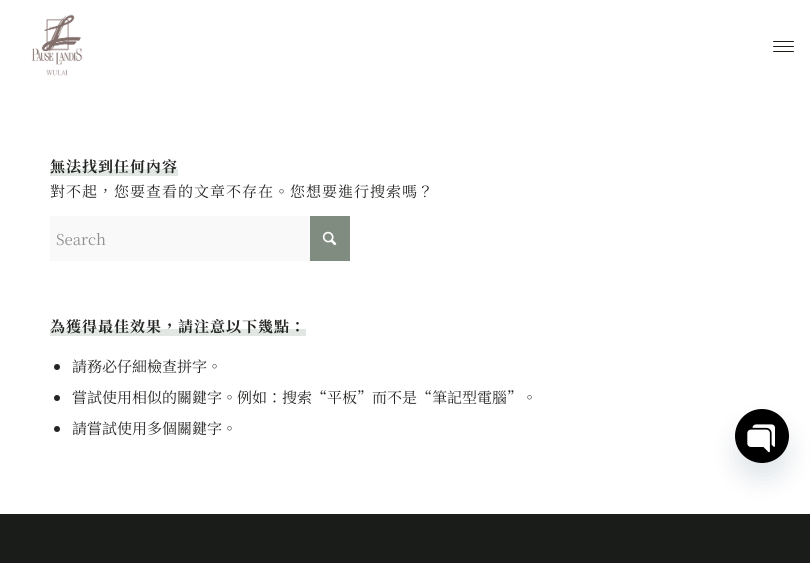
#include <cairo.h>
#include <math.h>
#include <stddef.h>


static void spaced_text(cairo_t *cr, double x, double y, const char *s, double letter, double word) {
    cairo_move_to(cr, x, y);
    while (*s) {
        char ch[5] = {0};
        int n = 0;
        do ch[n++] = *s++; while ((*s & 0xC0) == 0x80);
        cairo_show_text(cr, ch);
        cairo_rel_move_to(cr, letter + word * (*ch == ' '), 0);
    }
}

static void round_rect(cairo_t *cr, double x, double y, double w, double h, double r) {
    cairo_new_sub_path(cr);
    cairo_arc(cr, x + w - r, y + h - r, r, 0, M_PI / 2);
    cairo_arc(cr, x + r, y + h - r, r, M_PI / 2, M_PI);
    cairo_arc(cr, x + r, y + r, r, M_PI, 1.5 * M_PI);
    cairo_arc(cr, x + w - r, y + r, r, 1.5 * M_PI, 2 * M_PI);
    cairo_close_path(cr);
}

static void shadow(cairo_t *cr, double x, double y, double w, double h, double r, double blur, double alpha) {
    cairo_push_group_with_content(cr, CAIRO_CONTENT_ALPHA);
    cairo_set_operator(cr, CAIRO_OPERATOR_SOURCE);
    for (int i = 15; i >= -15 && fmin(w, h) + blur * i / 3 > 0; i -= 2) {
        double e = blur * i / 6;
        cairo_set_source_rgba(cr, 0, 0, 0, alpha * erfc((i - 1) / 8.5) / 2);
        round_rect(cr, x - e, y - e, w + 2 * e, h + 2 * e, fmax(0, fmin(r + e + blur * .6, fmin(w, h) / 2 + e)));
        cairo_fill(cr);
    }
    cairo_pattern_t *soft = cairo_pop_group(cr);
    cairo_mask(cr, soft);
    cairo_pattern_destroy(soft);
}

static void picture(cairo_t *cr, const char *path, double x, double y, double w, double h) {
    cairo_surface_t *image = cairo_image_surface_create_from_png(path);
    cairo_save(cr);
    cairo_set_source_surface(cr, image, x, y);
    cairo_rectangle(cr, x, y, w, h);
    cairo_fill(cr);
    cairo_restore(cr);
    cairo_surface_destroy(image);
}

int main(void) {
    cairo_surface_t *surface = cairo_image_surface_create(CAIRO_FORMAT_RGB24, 810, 563);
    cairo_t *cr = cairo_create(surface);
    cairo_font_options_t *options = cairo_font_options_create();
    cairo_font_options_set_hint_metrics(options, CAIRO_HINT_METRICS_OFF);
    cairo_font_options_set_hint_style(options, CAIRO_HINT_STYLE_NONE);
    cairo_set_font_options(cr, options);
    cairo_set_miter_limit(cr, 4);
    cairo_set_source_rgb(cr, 1, 1, 1);
    cairo_paint(cr);
    picture(cr, "img1.png", 31, 14, 52, 62);
    cairo_set_source_rgb(cr, 0.106, 0.11, 0.078);
    round_rect(cr, 773, 46, 21, 1, 0.5);
    cairo_fill(cr);
    round_rect(cr, 773, 41, 21, 1, 0.5);
    cairo_fill(cr);
    round_rect(cr, 773, 51, 21, 1, 0.5);
    cairo_fill(cr);
    cairo_set_source_rgb(cr, 0.89, 0.906, 0.89);
    cairo_rectangle(cr, 50, 169, 128, 7);
    cairo_fill(cr);
    cairo_select_font_face(cr, "Noto Serif TC", CAIRO_FONT_SLANT_NORMAL, CAIRO_FONT_WEIGHT_BOLD);
    cairo_set_font_size(cr, 15);
    cairo_set_source_rgb(cr, 0.141, 0.149, 0.137);
    spaced_text(cr, 50, 172, "無法找到任何內容", 1, 0);
    cairo_select_font_face(cr, "Noto Serif TC", CAIRO_FONT_SLANT_NORMAL, CAIRO_FONT_WEIGHT_NORMAL);
    spaced_text(cr, 50, 197, "對不起，您要查看的文章不存在。您想要進行搜索嗎？", 1, 0);
    cairo_set_source_rgb(cr, 0.502, 0.549, 0.502);
    cairo_rectangle(cr, 310, 216, 40, 45);
    cairo_fill(cr);
    cairo_set_source_rgb(cr, 0.973, 0.973, 0.973);
    cairo_rectangle(cr, 50, 216, 260, 45);
    cairo_fill(cr);
    cairo_set_source_rgb(cr, 0.557, 0.561, 0.557);
    cairo_move_to(cr, 56, 245);
    cairo_show_text(cr, "Search");
    picture(cr, "img2.png", 322, 231, 15, 15);
    cairo_set_source_rgb(cr, 0.89, 0.906, 0.89);
    cairo_rectangle(cr, 50, 329, 256, 7);
    cairo_fill(cr);
    cairo_select_font_face(cr, "Noto Serif TC", CAIRO_FONT_SLANT_NORMAL, CAIRO_FONT_WEIGHT_BOLD);
    cairo_set_source_rgb(cr, 0.141, 0.149, 0.137);
    spaced_text(cr, 50, 332, "為獲得最佳效果，請注意以下幾點：", 1, 0);
    cairo_new_path(cr);
    cairo_arc(cr, 57, 367, 3, 0, 2 * M_PI);
    cairo_fill(cr);
    cairo_select_font_face(cr, "Noto Serif TC", CAIRO_FONT_SLANT_NORMAL, CAIRO_FONT_WEIGHT_NORMAL);
    cairo_move_to(cr, 72, 372);
    cairo_show_text(cr, "請務必仔細檢查拼字。");
    cairo_new_path(cr);
    cairo_arc(cr, 57, 398, 3, 0, 2 * M_PI);
    cairo_fill(cr);
    cairo_move_to(cr, 72, 403);
    cairo_show_text(cr, "嘗試使用相似的關鍵字。例如：搜索“平板”而不是“筆記型電腦”。");
    cairo_new_path(cr);
    cairo_arc(cr, 57, 429, 3, 0, 2 * M_PI);
    cairo_fill(cr);
    cairo_move_to(cr, 72, 434);
    cairo_show_text(cr, "請嘗試使用多個關鍵字。");
    cairo_set_source_rgb(cr, 0.102, 0.11, 0.098);
    cairo_rectangle(cr, 0, 514, 810, 49);
    cairo_fill(cr);
    cairo_set_source_rgb(cr, 0.286, 0.408, 0.494);
    shadow(cr, 735, 425, 54, 54, 27, 12, 0.16);
    picture(cr, "img3.png", 735, 409, 54, 54);
    cairo_surface_write_to_png(surface, "page.png");
    cairo_font_options_destroy(options);
    cairo_destroy(cr);
    cairo_surface_destroy(surface);
    return 0;
}
